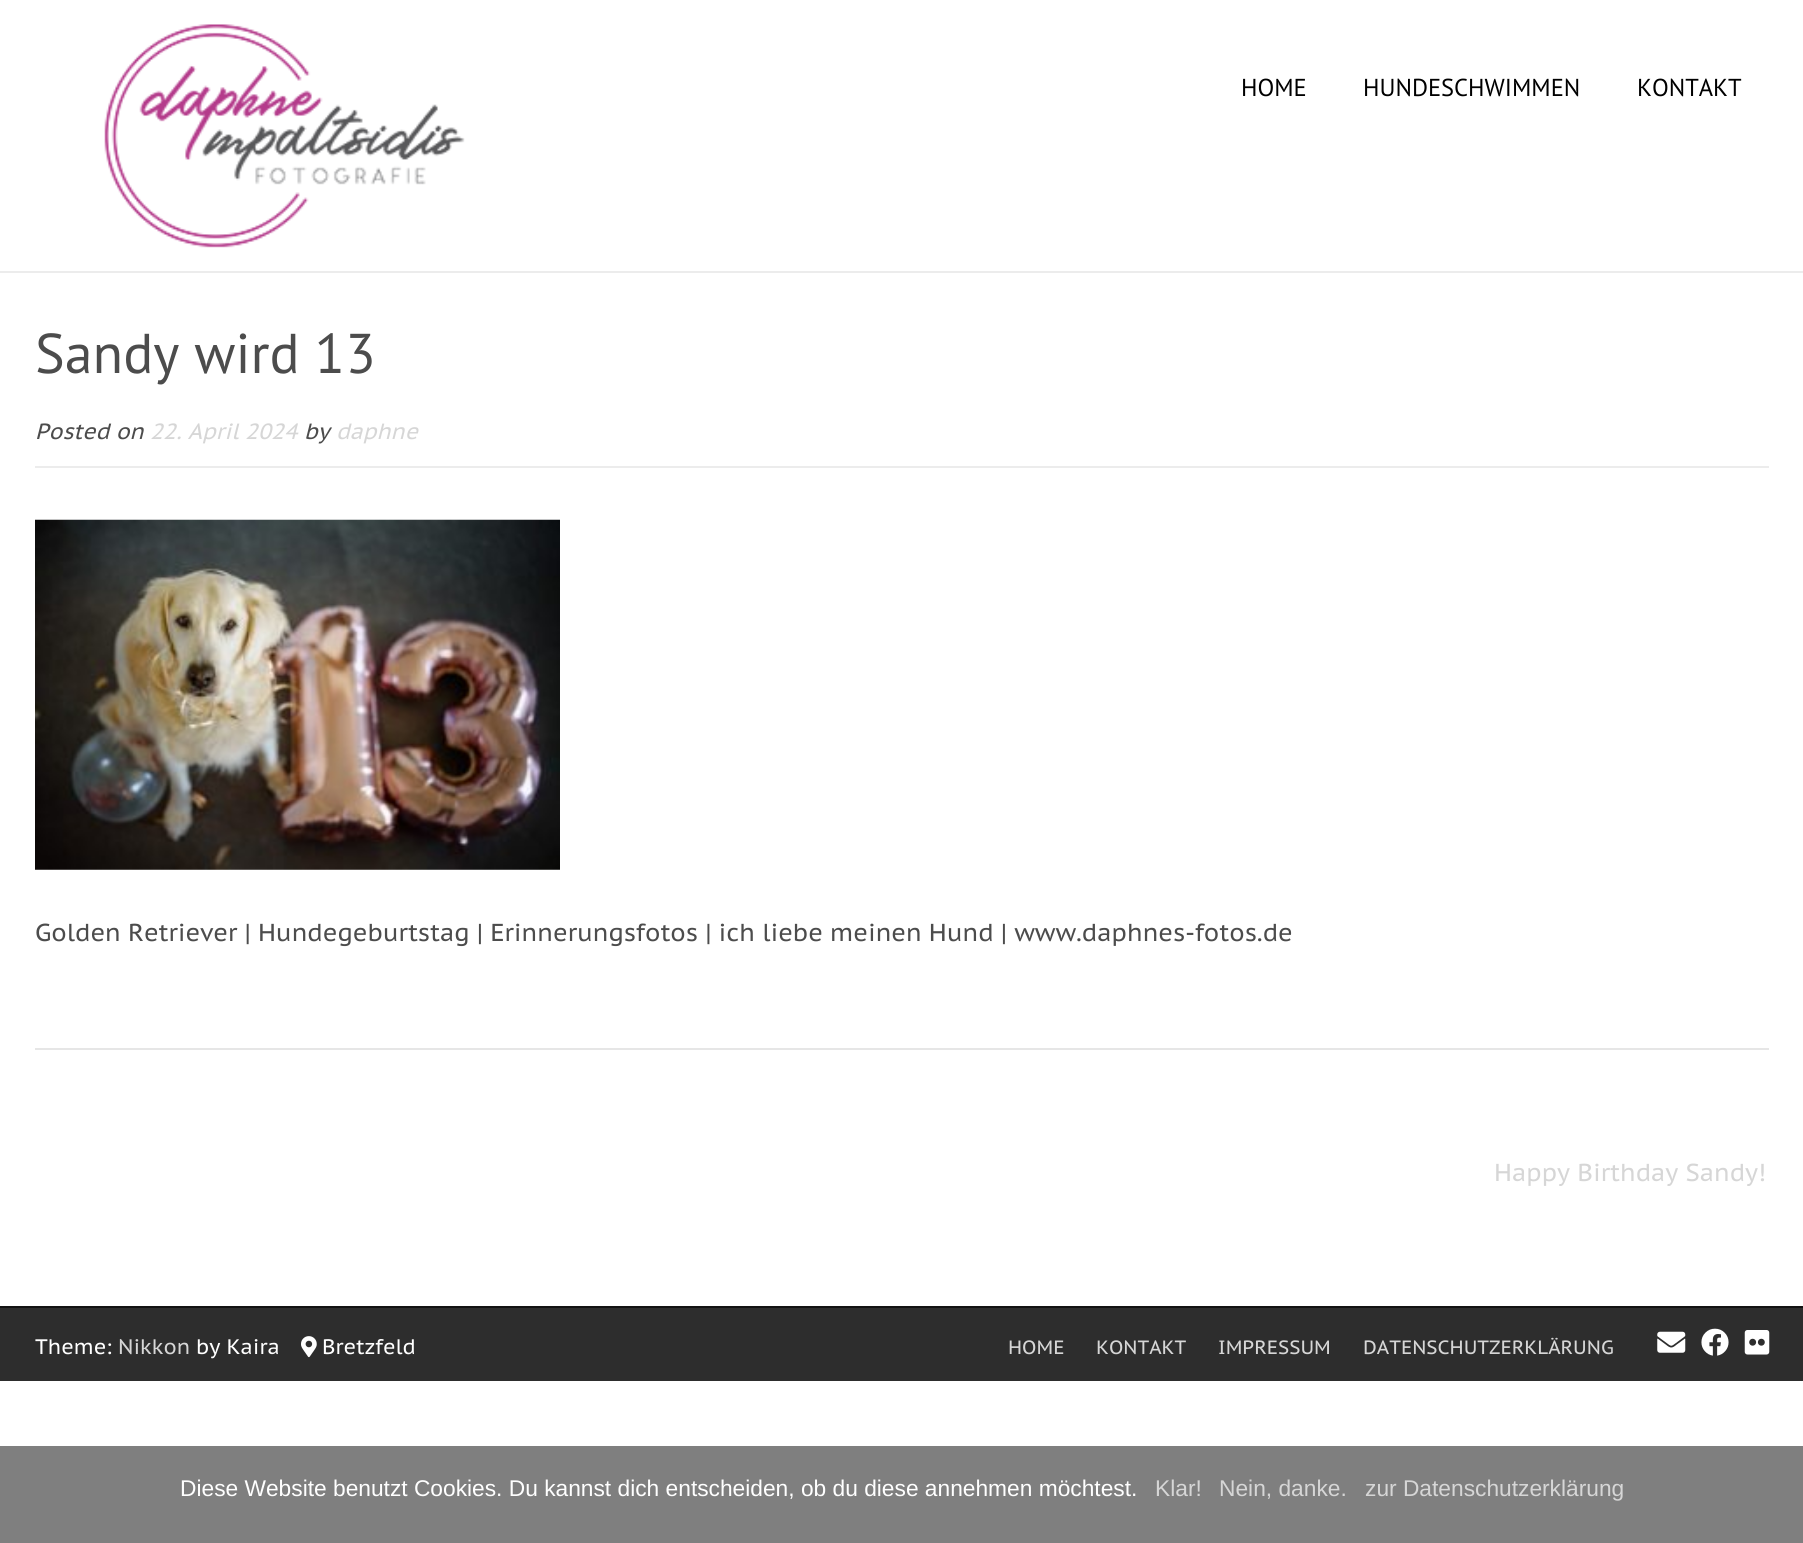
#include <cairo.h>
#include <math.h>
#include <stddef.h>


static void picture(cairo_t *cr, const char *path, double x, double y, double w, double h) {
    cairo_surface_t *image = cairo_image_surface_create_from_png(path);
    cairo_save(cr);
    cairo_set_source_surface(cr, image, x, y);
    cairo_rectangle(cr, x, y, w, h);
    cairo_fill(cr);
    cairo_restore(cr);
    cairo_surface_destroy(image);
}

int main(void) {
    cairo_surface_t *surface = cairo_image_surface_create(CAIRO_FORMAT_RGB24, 1803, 1543);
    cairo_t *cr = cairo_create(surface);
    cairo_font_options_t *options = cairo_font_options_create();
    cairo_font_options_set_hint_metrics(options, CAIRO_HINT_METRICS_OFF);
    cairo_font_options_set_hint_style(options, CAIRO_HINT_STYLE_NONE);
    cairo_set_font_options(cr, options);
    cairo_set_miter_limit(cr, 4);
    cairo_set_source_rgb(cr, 1, 1, 1);
    cairo_paint(cr);
    cairo_set_source_rgb(cr, 0.922, 0.922, 0.922);
    cairo_rectangle(cr, 0, 271, 1803, 2);
    cairo_fill(cr);
    picture(cr, "img1.png", 104, 24, 361, 224);
    cairo_select_font_face(cr, "PT Sans", CAIRO_FONT_SLANT_NORMAL, CAIRO_FONT_WEIGHT_NORMAL);
    cairo_set_font_size(cr, 24.5);
    cairo_set_source_rgb(cr, 0, 0, 0);
    cairo_move_to(cr, 1241, 96);
    cairo_show_text(cr, "HOME");
    cairo_move_to(cr, 1363, 96);
    cairo_show_text(cr, "HUNDESCHWIMMEN");
    cairo_move_to(cr, 1637, 96);
    cairo_show_text(cr, "KONTAKT");
    cairo_set_source_rgb(cr, 0.902, 0.902, 0.902);
    cairo_rectangle(cr, 35, 1048, 1734, 2);
    cairo_fill(cr);
    cairo_set_source_rgb(cr, 0.922, 0.922, 0.922);
    cairo_rectangle(cr, 35, 466, 1734, 2);
    cairo_fill(cr);
    cairo_set_font_size(cr, 56);
    cairo_set_source_rgb(cr, 0.298, 0.298, 0.298);
    cairo_move_to(cr, 35, 373);
    cairo_show_text(cr, "Sandy wird 13");
    cairo_select_font_face(cr, "PT Sans Caption", CAIRO_FONT_SLANT_ITALIC, CAIRO_FONT_WEIGHT_NORMAL);
    cairo_set_font_size(cr, 22);
    cairo_move_to(cr, 35, 439);
    cairo_show_text(cr, "Posted on");
    cairo_set_source_rgb(cr, 0.839, 0.839, 0.839);
    cairo_move_to(cr, 150, 439);
    cairo_show_text(cr, "22. April 2024");
    cairo_set_source_rgb(cr, 0.298, 0.298, 0.298);
    cairo_move_to(cr, 304, 439);
    cairo_show_text(cr, "by");
    cairo_set_source_rgb(cr, 0.839, 0.839, 0.839);
    cairo_move_to(cr, 336, 439);
    cairo_show_text(cr, "daphne");
    picture(cr, "img2.png", 35, 519, 525, 351);
    cairo_select_font_face(cr, "PT Sans Caption", CAIRO_FONT_SLANT_NORMAL, CAIRO_FONT_WEIGHT_NORMAL);
    cairo_set_font_size(cr, 24.5);
    cairo_set_source_rgb(cr, 0.298, 0.298, 0.298);
    cairo_move_to(cr, 35, 941);
    cairo_show_text(cr, "Golden Retriever | Hundegeburtstag | Erinnerungsfotos | ich liebe meinen Hund | www.daphnes-fotos.de");
    cairo_set_source_rgb(cr, 0.839, 0.839, 0.839);
    cairo_move_to(cr, 1494, 1181);
    cairo_show_text(cr, "Happy Birthday Sandy!");
    cairo_set_source_rgb(cr, 0.176, 0.176, 0.176);
    cairo_rectangle(cr, 0, 1308, 1803, 73);
    cairo_fill(cr);
    cairo_set_source_rgb(cr, 0.071, 0.071, 0.071);
    cairo_rectangle(cr, 0, 1306, 1803, 2);
    cairo_fill(cr);
    cairo_set_font_size(cr, 21);
    cairo_set_source_rgb(cr, 1, 1, 1);
    cairo_move_to(cr, 35, 1354);
    cairo_show_text(cr, "Theme:");
    cairo_set_source_rgb(cr, 0.839, 0.839, 0.839);
    cairo_move_to(cr, 118, 1354);
    cairo_show_text(cr, "Nikkon");
    cairo_set_source_rgb(cr, 1, 1, 1);
    cairo_move_to(cr, 196, 1354);
    cairo_show_text(cr, "by Kaira");
    picture(cr, "img3.png", 301, 1336, 16, 22);
    cairo_move_to(cr, 322, 1354);
    cairo_show_text(cr, "Bretzfeld");
    cairo_set_font_size(cr, 19.25);
    cairo_set_source_rgb(cr, 0.839, 0.839, 0.839);
    cairo_move_to(cr, 1008, 1354);
    cairo_show_text(cr, "HOME");
    cairo_move_to(cr, 1096, 1354);
    cairo_show_text(cr, "KONTAKT");
    cairo_move_to(cr, 1218, 1354);
    cairo_show_text(cr, "IMPRESSUM");
    cairo_move_to(cr, 1363, 1354);
    cairo_show_text(cr, "DATENSCHUTZERKLÄRUNG");
    picture(cr, "img4.png", 1657, 1331, 29, 22);
    picture(cr, "img5.png", 1701, 1328, 28, 28);
    picture(cr, "img6.png", 1744, 1330, 26, 25);
    cairo_set_source_rgb(cr, 0.498, 0.498, 0.498);
    cairo_rectangle(cr, 0, 1446, 1803, 97);
    cairo_fill(cr);
    cairo_select_font_face(cr, "Liberation Sans", CAIRO_FONT_SLANT_NORMAL, CAIRO_FONT_WEIGHT_NORMAL);
    cairo_set_font_size(cr, 22.75);
    cairo_set_source_rgb(cr, 1, 1, 1);
    cairo_move_to(cr, 180, 1496);
    cairo_show_text(cr, "Diese Website benutzt Cookies. Du kannst dich entscheiden, ob du diese annehmen möchtest.");
    cairo_set_source_rgb(cr, 0.839, 0.839, 0.839);
    cairo_move_to(cr, 1155, 1496);
    cairo_show_text(cr, "Klar!");
    cairo_move_to(cr, 1219, 1496);
    cairo_show_text(cr, "Nein, danke.");
    cairo_move_to(cr, 1365, 1496);
    cairo_show_text(cr, "zur Datenschutzerklärung");
    cairo_surface_write_to_png(surface, "page.png");
    cairo_font_options_destroy(options);
    cairo_destroy(cr);
    cairo_surface_destroy(surface);
    return 0;
}
